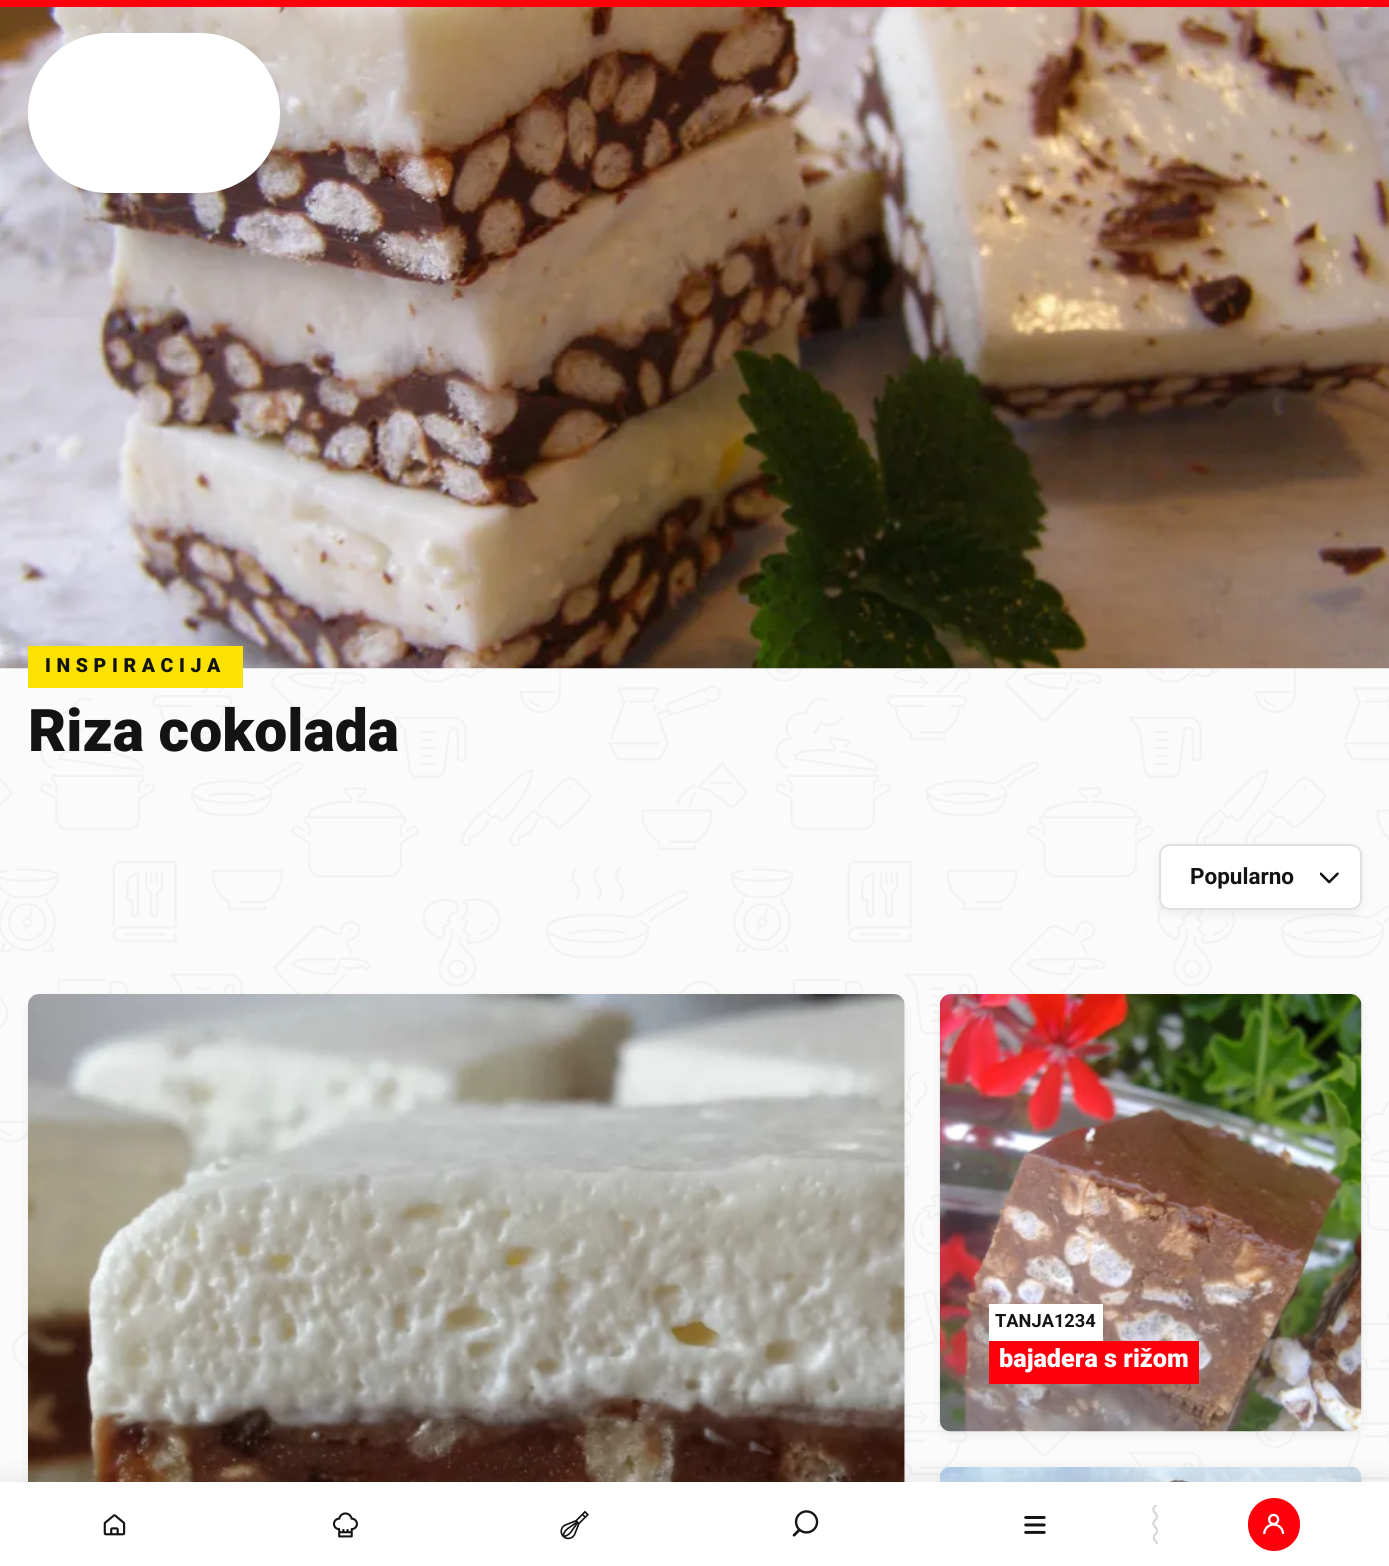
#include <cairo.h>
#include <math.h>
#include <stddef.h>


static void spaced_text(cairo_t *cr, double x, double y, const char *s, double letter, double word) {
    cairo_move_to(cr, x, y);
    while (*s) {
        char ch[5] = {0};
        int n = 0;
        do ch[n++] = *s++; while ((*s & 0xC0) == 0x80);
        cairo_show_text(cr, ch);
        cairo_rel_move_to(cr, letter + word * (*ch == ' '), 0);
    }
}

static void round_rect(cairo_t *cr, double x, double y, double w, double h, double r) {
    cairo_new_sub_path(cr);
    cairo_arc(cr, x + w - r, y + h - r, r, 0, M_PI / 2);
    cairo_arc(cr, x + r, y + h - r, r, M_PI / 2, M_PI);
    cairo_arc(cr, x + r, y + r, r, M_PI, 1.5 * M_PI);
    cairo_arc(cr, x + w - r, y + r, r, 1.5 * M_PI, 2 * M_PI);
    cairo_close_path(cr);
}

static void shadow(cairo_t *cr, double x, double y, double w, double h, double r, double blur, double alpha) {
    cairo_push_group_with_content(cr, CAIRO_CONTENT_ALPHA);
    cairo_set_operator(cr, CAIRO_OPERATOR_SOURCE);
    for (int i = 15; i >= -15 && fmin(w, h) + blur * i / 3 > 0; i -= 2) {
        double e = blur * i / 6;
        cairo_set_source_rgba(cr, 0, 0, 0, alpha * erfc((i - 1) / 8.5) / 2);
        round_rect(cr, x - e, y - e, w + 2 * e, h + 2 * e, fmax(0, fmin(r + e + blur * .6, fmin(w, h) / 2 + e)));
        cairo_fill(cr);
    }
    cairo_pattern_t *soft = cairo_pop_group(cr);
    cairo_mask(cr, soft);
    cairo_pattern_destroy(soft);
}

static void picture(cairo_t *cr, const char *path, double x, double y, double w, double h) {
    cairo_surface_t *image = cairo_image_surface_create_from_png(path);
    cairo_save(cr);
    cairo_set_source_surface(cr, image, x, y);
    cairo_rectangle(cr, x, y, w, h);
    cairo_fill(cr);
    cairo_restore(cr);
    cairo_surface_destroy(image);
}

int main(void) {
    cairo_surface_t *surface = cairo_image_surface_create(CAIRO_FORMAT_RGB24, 1389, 1566);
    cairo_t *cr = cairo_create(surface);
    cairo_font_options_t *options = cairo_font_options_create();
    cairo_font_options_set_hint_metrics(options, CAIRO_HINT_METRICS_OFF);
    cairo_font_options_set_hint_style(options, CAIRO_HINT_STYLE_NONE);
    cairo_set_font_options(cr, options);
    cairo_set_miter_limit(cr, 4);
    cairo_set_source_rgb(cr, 0.984, 0.984, 0.984);
    cairo_paint(cr);
    picture(cr, "img1.png", 0, 668, 1389, 812);
    cairo_set_source_rgb(cr, 0.996, 0, 0.047);
    cairo_rectangle(cr, 0, 0, 1389, 7);
    cairo_fill(cr);
    picture(cr, "img2.png", 0, 7, 1389, 662);
    cairo_set_source_rgb(cr, 0, 0, 0);
    shadow(cr, 28, 107, 252, 159, 79.5, 29, 0.05);
    cairo_set_source_rgb(cr, 1, 1, 1);
    round_rect(cr, 28, 33, 252, 160, 80);
    cairo_fill(cr);
    cairo_set_source_rgb(cr, 0.988, 0.886, 0.004);
    cairo_rectangle(cr, 28, 646, 215, 42);
    cairo_fill(cr);
    cairo_select_font_face(cr, "Roboto Black", CAIRO_FONT_SLANT_NORMAL, CAIRO_FONT_WEIGHT_NORMAL);
    cairo_set_font_size(cr, 19.5);
    cairo_set_source_rgb(cr, 0.078, 0.075, 0.075);
    spaced_text(cr, 45, 672, "INSPIRACIJA", 5.6, 0);
    cairo_set_font_size(cr, 58.75);
    cairo_move_to(cr, 28, 751);
    cairo_show_text(cr, "Riza cokolada");
    cairo_set_source_rgb(cr, 0, 0, 0);
    shadow(cr, 1159, 847, 203, 67, 11, 5, 0.06);
    cairo_set_source_rgb(cr, 1, 1, 1);
    round_rect(cr, 1160, 845, 201, 64, 10);
    cairo_fill_preserve(cr);
    cairo_set_source_rgb(cr, 0.878, 0.878, 0.878);
    cairo_stroke(cr);
    cairo_select_font_face(cr, "Roboto", CAIRO_FONT_SLANT_NORMAL, CAIRO_FONT_WEIGHT_BOLD);
    cairo_set_font_size(cr, 22.5);
    cairo_set_source_rgb(cr, 0.078, 0.075, 0.075);
    cairo_move_to(cr, 1190, 884);
    cairo_show_text(cr, "Popularno");
    picture(cr, "img3.png", 1320, 872, 19, 12);
    cairo_set_source_rgb(cr, 0, 0, 0);
    shadow(cr, 28, 998, 877, 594, 11, 5, 0.06);
    picture(cr, "img4.png", 28, 994, 877, 488);
    shadow(cr, 940, 998, 422, 437, 11, 5, 0.06);
    picture(cr, "img5.png", 939, 994, 423, 438);
    cairo_set_source_rgb(cr, 1, 1, 1);
    cairo_rectangle(cr, 989, 1304, 114, 37);
    cairo_fill(cr);
    cairo_set_font_size(cr, 18.25);
    cairo_set_source_rgb(cr, 0.078, 0.075, 0.075);
    cairo_move_to(cr, 995, 1327);
    cairo_show_text(cr, "TANJA1234");
    cairo_set_source_rgb(cr, 0.996, 0, 0.047);
    cairo_rectangle(cr, 989, 1341, 210, 43);
    cairo_fill(cr);
    cairo_select_font_face(cr, "Roboto Black", CAIRO_FONT_SLANT_NORMAL, CAIRO_FONT_WEIGHT_NORMAL);
    cairo_set_font_size(cr, 25.25);
    cairo_set_source_rgb(cr, 1, 1, 1);
    cairo_move_to(cr, 999, 1367);
    cairo_show_text(cr, "bajadera s rižom");
    cairo_set_source_rgb(cr, 0, 0, 0);
    shadow(cr, 940, 1470, 422, 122, 11, 5, 0.06);
    picture(cr, "img6.png", 940, 1467, 422, 15);
    shadow(cr, 0, 1479, 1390, 84, 0, 14, 0.08);
    cairo_set_source_rgb(cr, 1, 1, 1);
    cairo_rectangle(cr, 0, 1482, 1389, 84);
    cairo_fill(cr);
    picture(cr, "img7.png", 103, 1514, 23, 22);
    picture(cr, "img8.png", 332, 1512, 26, 26);
    picture(cr, "img9.png", 560, 1510, 29, 30);
    picture(cr, "img10.png", 792, 1510, 27, 27);
    picture(cr, "img11.png", 1024, 1516, 22, 18);
    picture(cr, "img12.png", 1152, 1505, 6, 39);
    cairo_set_source_rgb(cr, 0.996, 0, 0.047);
    round_rect(cr, 1248, 1498, 52, 53, 26);
    cairo_fill(cr);
    picture(cr, "img13.png", 1263, 1513, 22, 21);
    cairo_surface_write_to_png(surface, "page.png");
    cairo_font_options_destroy(options);
    cairo_destroy(cr);
    cairo_surface_destroy(surface);
    return 0;
}
